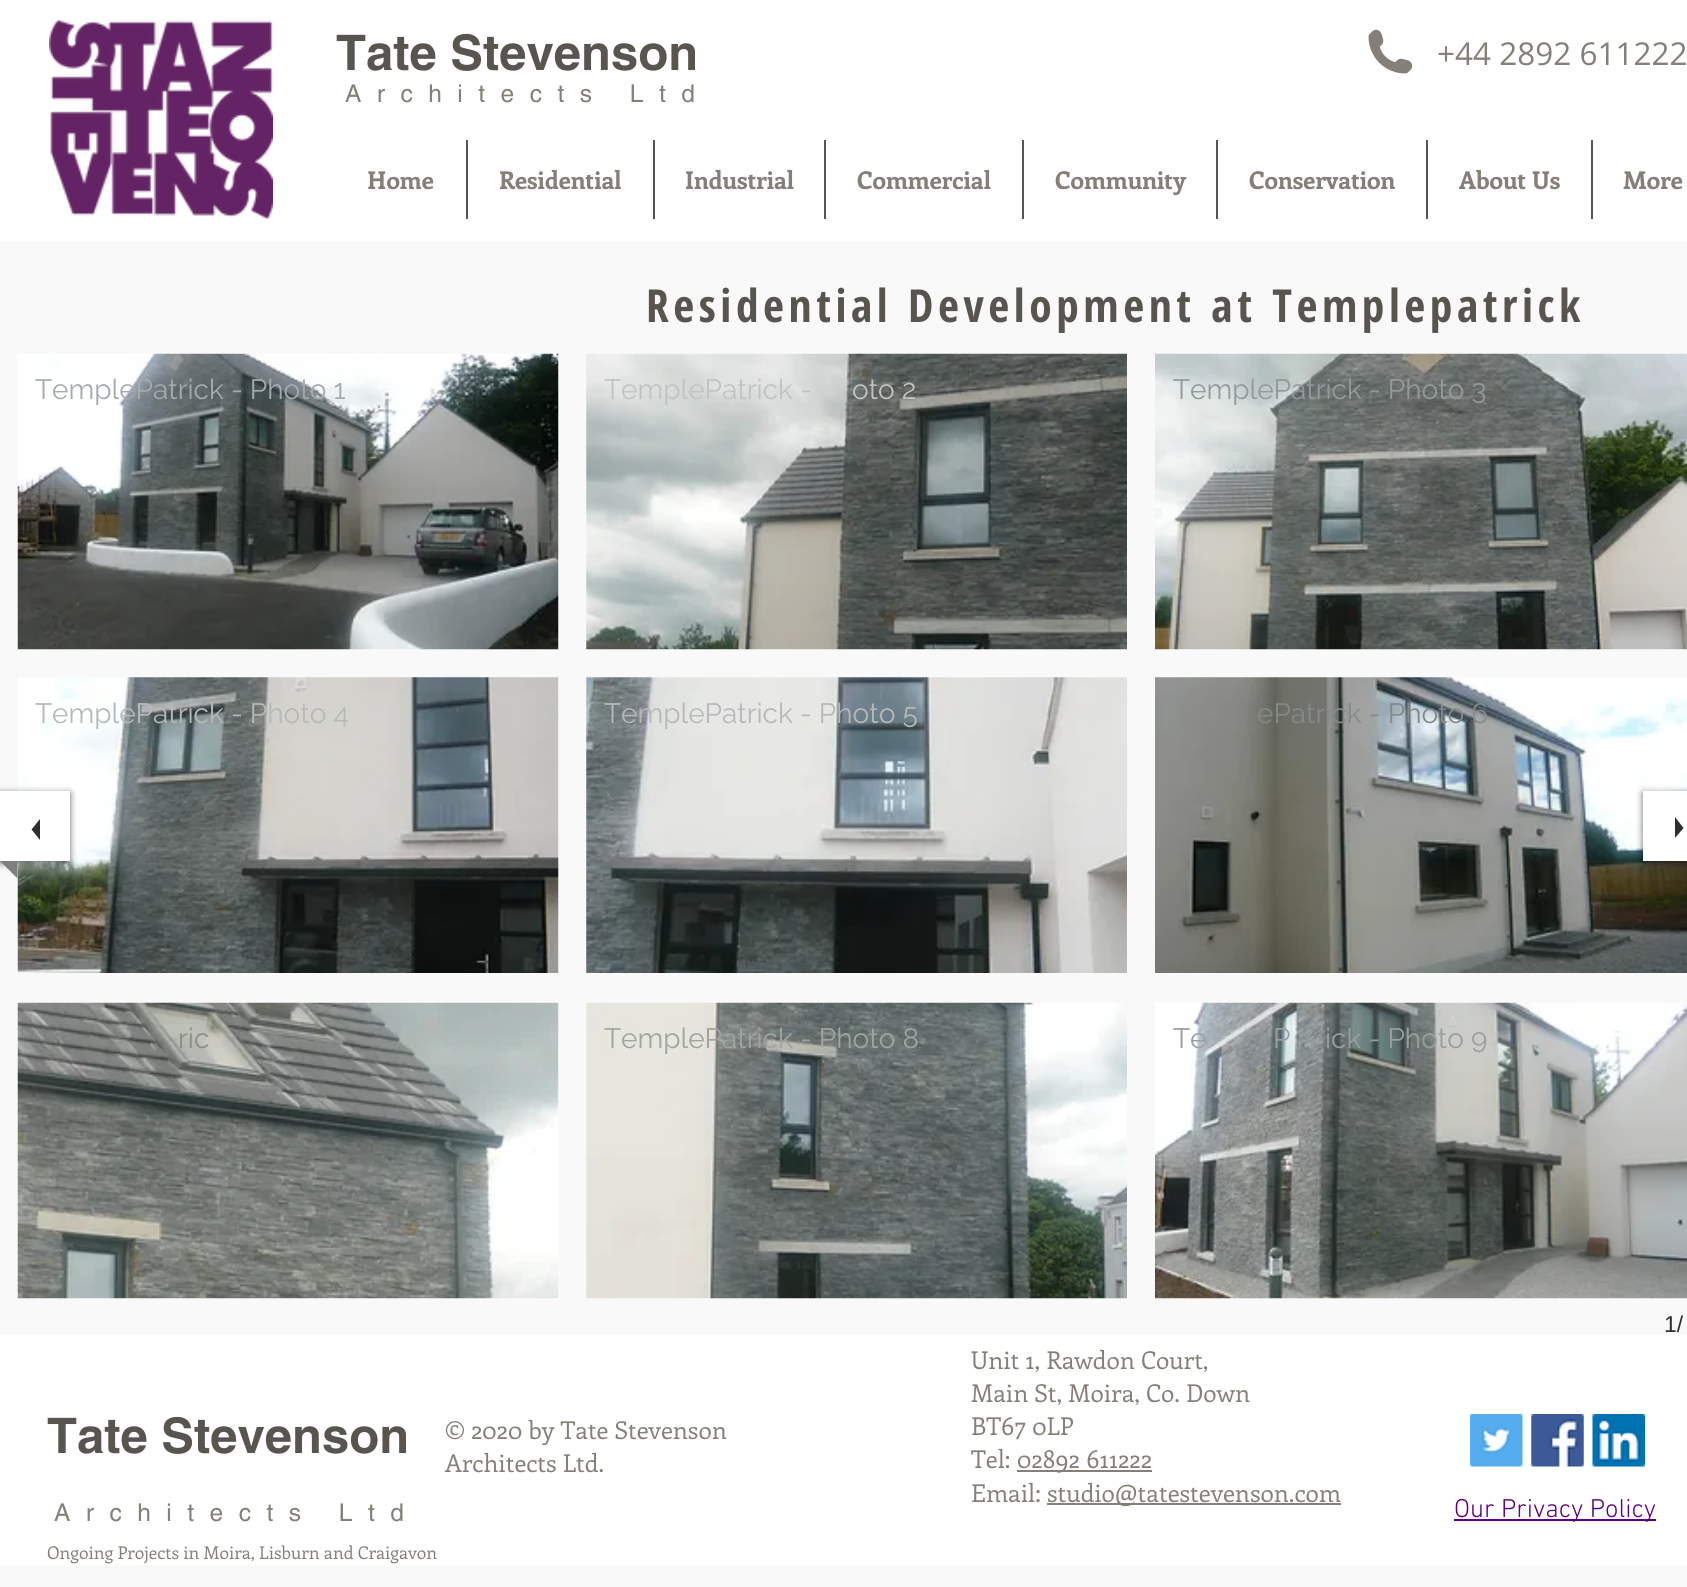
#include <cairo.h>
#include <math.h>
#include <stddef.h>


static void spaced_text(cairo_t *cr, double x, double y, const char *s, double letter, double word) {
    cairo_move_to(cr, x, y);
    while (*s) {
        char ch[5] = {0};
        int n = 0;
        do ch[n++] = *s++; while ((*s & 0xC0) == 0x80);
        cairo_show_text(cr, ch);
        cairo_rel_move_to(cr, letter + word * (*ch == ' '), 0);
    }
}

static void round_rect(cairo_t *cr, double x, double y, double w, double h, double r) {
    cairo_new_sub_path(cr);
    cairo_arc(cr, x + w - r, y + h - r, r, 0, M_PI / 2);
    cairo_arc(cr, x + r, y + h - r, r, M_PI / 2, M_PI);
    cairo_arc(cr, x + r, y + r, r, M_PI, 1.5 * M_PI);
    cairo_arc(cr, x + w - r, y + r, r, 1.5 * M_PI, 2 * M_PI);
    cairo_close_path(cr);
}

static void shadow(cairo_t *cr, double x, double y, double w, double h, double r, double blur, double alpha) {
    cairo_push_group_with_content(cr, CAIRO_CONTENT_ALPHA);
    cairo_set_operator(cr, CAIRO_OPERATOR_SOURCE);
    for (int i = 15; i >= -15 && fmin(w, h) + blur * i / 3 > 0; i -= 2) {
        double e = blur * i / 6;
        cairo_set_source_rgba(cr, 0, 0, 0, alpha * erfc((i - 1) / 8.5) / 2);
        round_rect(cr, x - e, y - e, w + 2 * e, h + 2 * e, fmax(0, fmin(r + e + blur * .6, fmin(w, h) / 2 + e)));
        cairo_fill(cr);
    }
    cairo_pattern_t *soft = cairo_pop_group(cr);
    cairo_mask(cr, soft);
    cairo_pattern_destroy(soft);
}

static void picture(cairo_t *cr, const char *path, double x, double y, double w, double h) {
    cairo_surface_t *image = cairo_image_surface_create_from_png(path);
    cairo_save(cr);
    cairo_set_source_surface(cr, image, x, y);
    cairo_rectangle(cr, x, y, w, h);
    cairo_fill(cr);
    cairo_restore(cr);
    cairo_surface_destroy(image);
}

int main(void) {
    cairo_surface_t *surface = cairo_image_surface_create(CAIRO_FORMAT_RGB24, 1687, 1587);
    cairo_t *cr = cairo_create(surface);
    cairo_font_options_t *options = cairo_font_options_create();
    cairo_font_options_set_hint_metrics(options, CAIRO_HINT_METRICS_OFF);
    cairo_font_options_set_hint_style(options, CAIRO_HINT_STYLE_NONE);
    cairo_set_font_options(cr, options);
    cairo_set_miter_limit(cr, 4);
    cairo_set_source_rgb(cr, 0.973, 0.973, 0.973);
    cairo_paint(cr);
    cairo_set_source_rgb(cr, 1, 1, 1);
    cairo_rectangle(cr, 0, 0, 1687, 242);
    cairo_fill(cr);
    picture(cr, "img1.png", 49, 19, 224, 200);
    cairo_select_font_face(cr, "helvetica", CAIRO_FONT_SLANT_NORMAL, CAIRO_FONT_WEIGHT_BOLD);
    cairo_set_font_size(cr, 49);
    cairo_set_source_rgb(cr, 0.345, 0.333, 0.318);
    cairo_move_to(cr, 336, 70);
    cairo_show_text(cr, "Tate Stevenson");
    picture(cr, "img2.png", 1368, 29, 45, 45);
    cairo_select_font_face(cr, "Open Sans", CAIRO_FONT_SLANT_NORMAL, CAIRO_FONT_WEIGHT_NORMAL);
    cairo_set_font_size(cr, 31.5);
    cairo_set_source_rgb(cr, 0.518, 0.502, 0.475);
    cairo_move_to(cr, 1437, 65);
    cairo_show_text(cr, "+44 2892 611222");
    cairo_select_font_face(cr, "helvetica", CAIRO_FONT_SLANT_NORMAL, CAIRO_FONT_WEIGHT_NORMAL);
    cairo_set_font_size(cr, 24.5);
    spaced_text(cr, 345, 102, "Architects Ltd", 15.5, 0);
    cairo_select_font_face(cr, "Enriqueta", CAIRO_FONT_SLANT_NORMAL, CAIRO_FONT_WEIGHT_BOLD);
    cairo_move_to(cr, 367, 189);
    cairo_show_text(cr, "Home");
    cairo_set_source_rgb(cr, 0.345, 0.333, 0.318);
    cairo_rectangle(cr, 466, 140, 2, 79);
    cairo_fill(cr);
    cairo_set_source_rgb(cr, 0.518, 0.502, 0.475);
    cairo_move_to(cr, 499, 189);
    cairo_show_text(cr, "Residential");
    cairo_set_source_rgb(cr, 0.345, 0.333, 0.318);
    cairo_rectangle(cr, 653, 140, 2, 79);
    cairo_fill(cr);
    cairo_set_source_rgb(cr, 0.518, 0.502, 0.475);
    cairo_move_to(cr, 685, 189);
    cairo_show_text(cr, "Industrial");
    cairo_set_source_rgb(cr, 0.345, 0.333, 0.318);
    cairo_rectangle(cr, 824, 140, 2, 79);
    cairo_fill(cr);
    cairo_set_source_rgb(cr, 0.518, 0.502, 0.475);
    cairo_move_to(cr, 857, 189);
    cairo_show_text(cr, "Commercial");
    cairo_set_source_rgb(cr, 0.345, 0.333, 0.318);
    cairo_rectangle(cr, 1022, 140, 2, 79);
    cairo_fill(cr);
    cairo_set_source_rgb(cr, 0.518, 0.502, 0.475);
    cairo_move_to(cr, 1055, 189);
    cairo_show_text(cr, "Community");
    cairo_set_source_rgb(cr, 0.345, 0.333, 0.318);
    cairo_rectangle(cr, 1216, 140, 2, 79);
    cairo_fill(cr);
    cairo_set_source_rgb(cr, 0.518, 0.502, 0.475);
    cairo_move_to(cr, 1249, 189);
    cairo_show_text(cr, "Conservation");
    cairo_set_source_rgb(cr, 0.345, 0.333, 0.318);
    cairo_rectangle(cr, 1426, 140, 2, 79);
    cairo_fill(cr);
    cairo_set_source_rgb(cr, 0.518, 0.502, 0.475);
    cairo_move_to(cr, 1459, 189);
    cairo_show_text(cr, "About Us");
    cairo_set_source_rgb(cr, 0.345, 0.333, 0.318);
    cairo_rectangle(cr, 1591, 140, 2, 79);
    cairo_fill(cr);
    cairo_set_source_rgb(cr, 0.518, 0.502, 0.475);
    cairo_move_to(cr, 1623, 189);
    cairo_show_text(cr, "More");
    cairo_select_font_face(cr, "Open Sans Condensed", CAIRO_FONT_SLANT_NORMAL, CAIRO_FONT_WEIGHT_BOLD);
    cairo_set_font_size(cr, 45.5);
    cairo_set_source_rgb(cr, 0.345, 0.333, 0.318);
    spaced_text(cr, 646, 322, "Residential Development at Templepatrick", 4.55, 0);
    picture(cr, "img3.png", 17, 353, 542, 297);
    cairo_select_font_face(cr, "Raleway", CAIRO_FONT_SLANT_NORMAL, CAIRO_FONT_WEIGHT_NORMAL);
    cairo_set_font_size(cr, 28);
    cairo_set_source_rgb(cr, 0.643, 0.667, 0.678);
    cairo_move_to(cr, 35, 399);
    cairo_show_text(cr, "TemplePatrick - Photo 1");
    picture(cr, "img4.png", 586, 353, 541, 297);
    cairo_set_source_rgb(cr, 0.749, 0.765, 0.757);
    cairo_move_to(cr, 604, 399);
    cairo_show_text(cr, "TemplePatrick -");
    cairo_move_to(cr, 852, 399);
    cairo_show_text(cr, "oto 2");
    picture(cr, "img5.png", 1155, 353, 532, 297);
    cairo_set_source_rgb(cr, 0.576, 0.604, 0.6);
    cairo_move_to(cr, 1173, 399);
    cairo_show_text(cr, "TemplePatrick - Photo 3");
    picture(cr, "img6.png", 17, 677, 542, 296);
    cairo_set_source_rgb(cr, 0.71, 0.725, 0.722);
    cairo_move_to(cr, 35, 723);
    cairo_show_text(cr, "TemplePatrick - Photo 4");
    picture(cr, "img7.png", 586, 677, 541, 296);
    cairo_move_to(cr, 604, 723);
    cairo_show_text(cr, "TemplePatrick - Photo 5");
    picture(cr, "img8.png", 1155, 677, 532, 296);
    cairo_set_source_rgb(cr, 0.518, 0.537, 0.537);
    cairo_move_to(cr, 1257, 723);
    cairo_show_text(cr, "ePatrick - Photo 6");
    picture(cr, "img9.png", 17, 1002, 542, 297);
    cairo_set_source_rgb(cr, 0.541, 0.553, 0.537);
    cairo_move_to(cr, 178, 1048);
    cairo_show_text(cr, "ric");
    picture(cr, "img10.png", 586, 1002, 541, 297);
    cairo_set_source_rgb(cr, 0.627, 0.643, 0.627);
    cairo_move_to(cr, 604, 1048);
    cairo_show_text(cr, "TemplePatrick - Photo 8");
    picture(cr, "img11.png", 1155, 1002, 532, 297);
    cairo_set_source_rgb(cr, 0.596, 0.624, 0.624);
    cairo_move_to(cr, 1173, 1048);
    cairo_show_text(cr, "Te");
    cairo_move_to(cr, 1273, 1048);
    cairo_show_text(cr, "P");
    cairo_move_to(cr, 1325, 1048);
    cairo_show_text(cr, "ick - Photo 9");
    cairo_set_source_rgb(cr, 0, 0, 0);
    shadow(cr, 0, 793, 70, 70, 0, 3.5, 0.6);
    cairo_set_source_rgb(cr, 1, 1, 1);
    cairo_rectangle(cr, 0, 791, 70, 70);
    cairo_fill(cr);
    cairo_set_source_rgb(cr, 0.184, 0.18, 0.18);
    cairo_new_path(cr);
    cairo_move_to(cr, 40, 819);
    cairo_line_to(cr, 40, 840);
    cairo_line_to(cr, 31.5, 829.5);
    cairo_close_path(cr);
    cairo_fill(cr);
    cairo_set_source_rgb(cr, 0.502, 0.502, 0.502);
    cairo_new_path(cr);
    cairo_move_to(cr, 17.5, 861);
    cairo_line_to(cr, 17.5, 878.5);
    cairo_line_to(cr, 0, 861);
    cairo_close_path(cr);
    cairo_fill(cr);
    cairo_set_source_rgb(cr, 0, 0, 0);
    shadow(cr, 1643, 793, 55, 70, 0, 3.5, 0.6);
    cairo_set_source_rgb(cr, 1, 1, 1);
    cairo_rectangle(cr, 1643, 791, 44, 70);
    cairo_fill(cr);
    cairo_set_source_rgb(cr, 0.184, 0.18, 0.18);
    cairo_new_path(cr);
    cairo_move_to(cr, 1675, 838);
    cairo_line_to(cr, 1675, 817);
    cairo_line_to(cr, 1683.5, 828);
    cairo_close_path(cr);
    cairo_fill(cr);
    cairo_select_font_face(cr, "Liberation Sans", CAIRO_FONT_SLANT_NORMAL, CAIRO_FONT_WEIGHT_NORMAL);
    cairo_set_font_size(cr, 23);
    cairo_move_to(cr, 1664, 1332);
    cairo_show_text(cr, "1/");
    cairo_set_source_rgb(cr, 1, 1, 1);
    cairo_rectangle(cr, 0, 1334, 1687, 231);
    cairo_fill(cr);
    cairo_select_font_face(cr, "helvetica", CAIRO_FONT_SLANT_NORMAL, CAIRO_FONT_WEIGHT_BOLD);
    cairo_set_font_size(cr, 49);
    cairo_set_source_rgb(cr, 0.345, 0.333, 0.318);
    cairo_move_to(cr, 47, 1453);
    cairo_show_text(cr, "Tate Stevenson");
    cairo_select_font_face(cr, "Enriqueta", CAIRO_FONT_SLANT_NORMAL, CAIRO_FONT_WEIGHT_NORMAL);
    cairo_set_font_size(cr, 24.5);
    cairo_set_source_rgb(cr, 0.518, 0.502, 0.475);
    cairo_move_to(cr, 445, 1439);
    cairo_show_text(cr, "© 2020 by Tate Stevenson");
    cairo_move_to(cr, 445, 1472);
    cairo_show_text(cr, "Architects Ltd.");
    cairo_move_to(cr, 971, 1369);
    cairo_show_text(cr, "Unit 1, Rawdon Court,");
    cairo_move_to(cr, 971, 1402);
    cairo_show_text(cr, "Main St, Moira, Co. Down");
    cairo_move_to(cr, 971, 1435);
    cairo_show_text(cr, "BT67 0LP");
    cairo_move_to(cr, 971, 1468);
    cairo_show_text(cr, "Tel:");
    cairo_rectangle(cr, 1017, 1470, 135, 2);
    cairo_fill(cr);
    cairo_move_to(cr, 1017, 1468);
    cairo_show_text(cr, "02892 611222");
    cairo_move_to(cr, 971, 1502);
    cairo_show_text(cr, "Email:");
    cairo_rectangle(cr, 1047, 1503, 294, 2);
    cairo_fill(cr);
    cairo_move_to(cr, 1047, 1502);
    cairo_show_text(cr, "studio@tatestevenson.com");
    picture(cr, "img12.png", 1470, 1414, 53, 53);
    picture(cr, "img13.png", 1531, 1414, 53, 53);
    picture(cr, "img14.png", 1592, 1414, 53, 53);
    cairo_select_font_face(cr, "helvetica", CAIRO_FONT_SLANT_NORMAL, CAIRO_FONT_WEIGHT_NORMAL);
    spaced_text(cr, 54, 1521, "Architects Ltd", 15.5, 0);
    cairo_set_source_rgb(cr, 0.361, 0, 0.482);
    cairo_rectangle(cr, 1454, 1519, 202, 2);
    cairo_fill(cr);
    cairo_select_font_face(cr, "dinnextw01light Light", CAIRO_FONT_SLANT_NORMAL, CAIRO_FONT_WEIGHT_NORMAL);
    cairo_set_font_size(cr, 26.25);
    cairo_move_to(cr, 1454, 1517);
    cairo_show_text(cr, "Our Privacy Policy");
    cairo_select_font_face(cr, "Enriqueta", CAIRO_FONT_SLANT_NORMAL, CAIRO_FONT_WEIGHT_NORMAL);
    cairo_set_font_size(cr, 17.5);
    cairo_set_source_rgb(cr, 0.518, 0.502, 0.475);
    cairo_move_to(cr, 47, 1559);
    cairo_show_text(cr, "Ongoing Projects in Moira, Lisburn and Craigavon");
    cairo_surface_write_to_png(surface, "page.png");
    cairo_font_options_destroy(options);
    cairo_destroy(cr);
    cairo_surface_destroy(surface);
    return 0;
}
